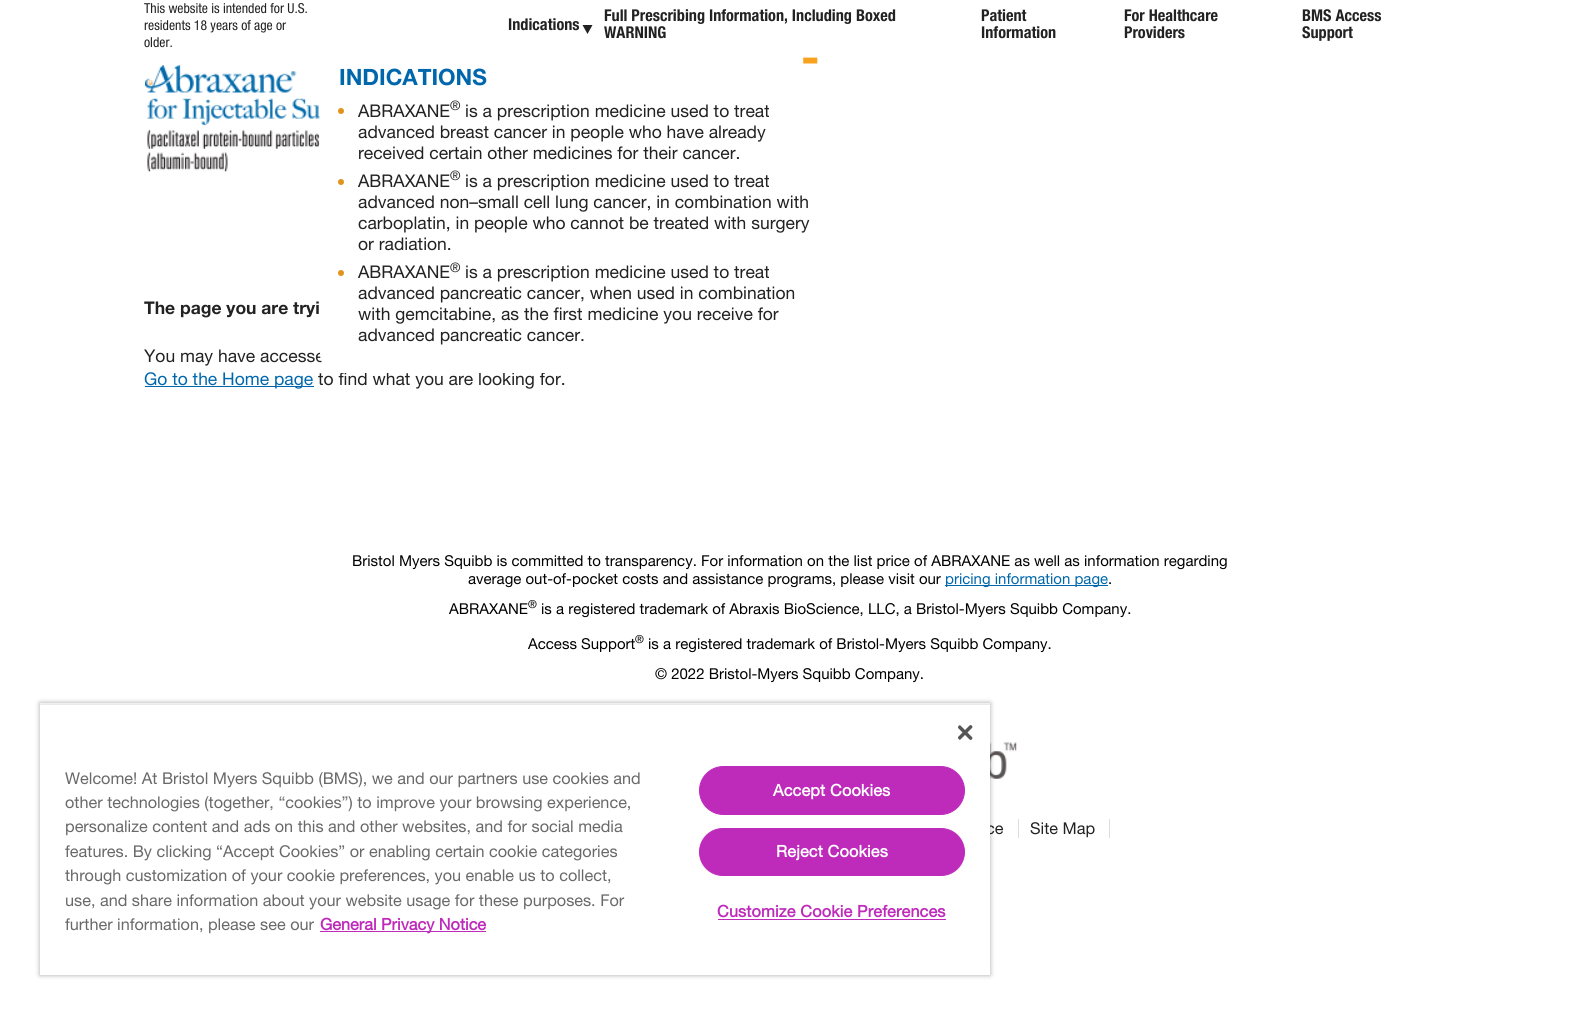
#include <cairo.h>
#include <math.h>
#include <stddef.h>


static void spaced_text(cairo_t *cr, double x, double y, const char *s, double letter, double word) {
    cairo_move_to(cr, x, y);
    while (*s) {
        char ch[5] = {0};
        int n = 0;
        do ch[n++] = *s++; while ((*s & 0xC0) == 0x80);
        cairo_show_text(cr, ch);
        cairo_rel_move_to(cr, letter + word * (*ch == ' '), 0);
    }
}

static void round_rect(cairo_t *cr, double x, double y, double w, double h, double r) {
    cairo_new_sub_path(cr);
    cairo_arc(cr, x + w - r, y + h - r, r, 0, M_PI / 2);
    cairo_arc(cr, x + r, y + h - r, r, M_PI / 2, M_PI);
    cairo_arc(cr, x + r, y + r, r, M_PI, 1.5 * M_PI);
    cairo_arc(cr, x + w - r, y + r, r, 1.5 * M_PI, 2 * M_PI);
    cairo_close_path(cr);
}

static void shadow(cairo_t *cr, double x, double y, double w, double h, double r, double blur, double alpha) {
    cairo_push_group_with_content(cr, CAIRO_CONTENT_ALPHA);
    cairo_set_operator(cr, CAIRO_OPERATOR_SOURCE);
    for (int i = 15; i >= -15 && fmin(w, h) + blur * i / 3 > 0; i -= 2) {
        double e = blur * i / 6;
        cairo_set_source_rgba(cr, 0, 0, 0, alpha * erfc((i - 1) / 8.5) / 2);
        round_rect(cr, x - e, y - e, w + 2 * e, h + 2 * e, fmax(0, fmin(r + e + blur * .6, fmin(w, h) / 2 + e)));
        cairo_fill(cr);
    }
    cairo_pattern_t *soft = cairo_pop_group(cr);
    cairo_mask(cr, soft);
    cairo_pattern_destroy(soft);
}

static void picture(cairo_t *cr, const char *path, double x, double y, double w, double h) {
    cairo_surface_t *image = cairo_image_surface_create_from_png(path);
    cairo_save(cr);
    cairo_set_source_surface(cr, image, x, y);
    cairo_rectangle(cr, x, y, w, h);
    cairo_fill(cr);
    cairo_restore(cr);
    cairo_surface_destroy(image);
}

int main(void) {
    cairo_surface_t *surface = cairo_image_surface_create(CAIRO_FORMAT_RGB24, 1580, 1014);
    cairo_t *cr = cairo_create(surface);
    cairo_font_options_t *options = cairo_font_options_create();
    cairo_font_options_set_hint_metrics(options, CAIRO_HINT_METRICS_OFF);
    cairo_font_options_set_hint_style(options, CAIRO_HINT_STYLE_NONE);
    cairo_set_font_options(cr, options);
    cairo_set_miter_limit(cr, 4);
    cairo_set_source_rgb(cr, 1, 1, 1);
    cairo_paint(cr);
    cairo_select_font_face(cr, "Helvetica Neue", CAIRO_FONT_SLANT_NORMAL, CAIRO_FONT_WEIGHT_NORMAL);
    cairo_set_font_size(cr, 13.75);
    cairo_set_source_rgb(cr, 0.133, 0.133, 0.133);
    cairo_move_to(cr, 144, 13);
    cairo_show_text(cr, "This website is intended for U.S.");
    cairo_move_to(cr, 144, 30);
    cairo_show_text(cr, "residents 18 years of age or");
    cairo_move_to(cr, 144, 47);
    cairo_show_text(cr, "older.");
    cairo_select_font_face(cr, "Helvetica Neue", CAIRO_FONT_SLANT_NORMAL, CAIRO_FONT_WEIGHT_BOLD);
    cairo_set_font_size(cr, 16.25);
    cairo_move_to(cr, 604, 21);
    cairo_show_text(cr, "Full Prescribing Information, Including Boxed");
    cairo_move_to(cr, 604, 38);
    cairo_show_text(cr, "WARNING");
    cairo_move_to(cr, 981, 21);
    cairo_show_text(cr, "Patient");
    cairo_move_to(cr, 981, 38);
    cairo_show_text(cr, "Information");
    cairo_move_to(cr, 1124, 21);
    cairo_show_text(cr, "For Healthcare");
    cairo_move_to(cr, 1124, 38);
    cairo_show_text(cr, "Providers");
    cairo_move_to(cr, 1302, 21);
    cairo_show_text(cr, "BMS Access");
    cairo_move_to(cr, 1302, 38);
    cairo_show_text(cr, "Support");
    cairo_move_to(cr, 508, 30);
    cairo_show_text(cr, "Indications");
    cairo_new_path(cr);
    cairo_move_to(cr, 582.5, 25);
    cairo_line_to(cr, 592.5, 25);
    cairo_line_to(cr, 587.5, 34);
    cairo_close_path(cr);
    cairo_fill(cr);
    cairo_select_font_face(cr, "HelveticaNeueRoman", CAIRO_FONT_SLANT_NORMAL, CAIRO_FONT_WEIGHT_NORMAL);
    cairo_set_font_size(cr, 17.5);
    cairo_move_to(cr, 144, 362);
    cairo_show_text(cr, "You may have accesse");
    cairo_move_to(cr, 318, 385);
    cairo_show_text(cr, "to find what you are looking for.");
    cairo_set_source_rgb(cr, 1, 1, 1);
    round_rect(cr, 320, 45, 519, 328, 19);
    cairo_fill(cr);
    cairo_select_font_face(cr, "Helvetica Neue", CAIRO_FONT_SLANT_NORMAL, CAIRO_FONT_WEIGHT_BOLD);
    cairo_set_font_size(cr, 50);
    cairo_set_source_rgb(cr, 0.973, 0.635, 0.125);
    cairo_move_to(cr, 801, 75);
    cairo_show_text(cr, "-");
    cairo_select_font_face(cr, "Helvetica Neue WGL", CAIRO_FONT_SLANT_NORMAL, CAIRO_FONT_WEIGHT_BOLD);
    cairo_set_font_size(cr, 22.5);
    cairo_set_source_rgb(cr, 0, 0.404, 0.675);
    cairo_move_to(cr, 339, 85);
    cairo_show_text(cr, "INDICATIONS");
    cairo_set_source_rgb(cr, 0.886, 0.576, 0.106);
    cairo_new_path(cr);
    cairo_arc(cr, 341, 111, 3, 0, 2 * M_PI);
    cairo_fill(cr);
    cairo_select_font_face(cr, "HelveticaNeueRoman", CAIRO_FONT_SLANT_NORMAL, CAIRO_FONT_WEIGHT_NORMAL);
    cairo_set_font_size(cr, 17.5);
    cairo_set_source_rgb(cr, 0.133, 0.133, 0.133);
    cairo_move_to(cr, 358, 117);
    cairo_show_text(cr, "ABRAXANE");
    cairo_set_font_size(cr, 13);
    cairo_move_to(cr, 450, 110);
    cairo_show_text(cr, "®");
    cairo_set_font_size(cr, 17.5);
    cairo_move_to(cr, 465, 117);
    cairo_show_text(cr, "is a prescription medicine used to treat");
    cairo_move_to(cr, 358, 138);
    cairo_show_text(cr, "advanced breast cancer in people who have already");
    cairo_move_to(cr, 358, 159);
    cairo_show_text(cr, "received certain other medicines for their cancer.");
    cairo_set_source_rgb(cr, 0.886, 0.576, 0.106);
    cairo_new_path(cr);
    cairo_arc(cr, 341, 182, 3, 0, 2 * M_PI);
    cairo_fill(cr);
    cairo_set_source_rgb(cr, 0.133, 0.133, 0.133);
    cairo_move_to(cr, 358, 187);
    cairo_show_text(cr, "ABRAXANE");
    cairo_set_font_size(cr, 13);
    cairo_move_to(cr, 450, 180);
    cairo_show_text(cr, "®");
    cairo_set_font_size(cr, 17.5);
    cairo_move_to(cr, 465, 187);
    cairo_show_text(cr, "is a prescription medicine used to treat");
    cairo_move_to(cr, 358, 208);
    cairo_show_text(cr, "advanced non–small cell lung cancer, in combination with");
    cairo_move_to(cr, 358, 229);
    cairo_show_text(cr, "carboplatin, in people who cannot be treated with surgery");
    cairo_move_to(cr, 358, 250);
    cairo_show_text(cr, "or radiation.");
    cairo_set_source_rgb(cr, 0.886, 0.576, 0.106);
    cairo_new_path(cr);
    cairo_arc(cr, 341, 273, 3, 0, 2 * M_PI);
    cairo_fill(cr);
    cairo_set_source_rgb(cr, 0.133, 0.133, 0.133);
    cairo_move_to(cr, 358, 278);
    cairo_show_text(cr, "ABRAXANE");
    cairo_set_font_size(cr, 13);
    cairo_move_to(cr, 450, 272);
    cairo_show_text(cr, "®");
    cairo_set_font_size(cr, 17.5);
    cairo_move_to(cr, 465, 278);
    cairo_show_text(cr, "is a prescription medicine used to treat");
    cairo_move_to(cr, 358, 299);
    cairo_show_text(cr, "advanced pancreatic cancer, when used in combination");
    cairo_move_to(cr, 358, 320);
    cairo_show_text(cr, "with gemcitabine, as the first medicine you receive for");
    cairo_move_to(cr, 358, 341);
    cairo_show_text(cr, "advanced pancreatic cancer.");
    picture(cr, "img1.png", 145, 65, 175, 107);
    cairo_select_font_face(cr, "Helvetica Neue WGL", CAIRO_FONT_SLANT_NORMAL, CAIRO_FONT_WEIGHT_BOLD);
    cairo_move_to(cr, 144, 314);
    cairo_show_text(cr, "The page you are tryi");
    cairo_set_source_rgb(cr, 0, 0.404, 0.675);
    cairo_rectangle(cr, 145, 386, 169, 1);
    cairo_fill(cr);
    cairo_select_font_face(cr, "HelveticaNeueRoman", CAIRO_FONT_SLANT_NORMAL, CAIRO_FONT_WEIGHT_NORMAL);
    cairo_move_to(cr, 144, 385);
    cairo_show_text(cr, "Go to the Home page");
    cairo_set_font_size(cr, 15);
    cairo_set_source_rgb(cr, 0, 0, 0);
    cairo_move_to(cr, 352, 566);
    cairo_show_text(cr, "Bristol Myers Squibb is committed to transparency. For information on the list price of ABRAXANE as well as information regarding");
    cairo_move_to(cr, 468, 584);
    cairo_show_text(cr, "average out-of-pocket costs and assistance programs, please visit our");
    cairo_set_source_rgb(cr, 0, 0.404, 0.675);
    cairo_rectangle(cr, 945, 585, 163, 1);
    cairo_fill(cr);
    cairo_move_to(cr, 945, 584);
    cairo_show_text(cr, "pricing information page");
    cairo_set_source_rgb(cr, 0, 0, 0);
    cairo_move_to(cr, 1108, 584);
    cairo_show_text(cr, ".");
    cairo_move_to(cr, 449, 614);
    cairo_show_text(cr, "ABRAXANE");
    cairo_set_font_size(cr, 11);
    cairo_move_to(cr, 528, 608);
    cairo_show_text(cr, "®");
    cairo_set_font_size(cr, 15);
    cairo_move_to(cr, 541, 614);
    cairo_show_text(cr, "is a registered trademark of Abraxis BioScience, LLC, a Bristol-Myers Squibb Company.");
    cairo_move_to(cr, 528, 649);
    cairo_show_text(cr, "Access Support");
    cairo_set_font_size(cr, 11);
    cairo_move_to(cr, 635, 643);
    cairo_show_text(cr, "®");
    cairo_set_font_size(cr, 15);
    cairo_move_to(cr, 648, 649);
    cairo_show_text(cr, "is a registered trademark of Bristol-Myers Squibb Company.");
    cairo_move_to(cr, 655, 679);
    cairo_show_text(cr, "© 2022 Bristol-Myers Squibb Company.");
    picture(cr, "img2.png", 990, 742, 27, 37);
    cairo_set_font_size(cr, 16.25);
    cairo_set_source_rgb(cr, 0.133, 0.133, 0.133);
    cairo_move_to(cr, 986, 834);
    cairo_show_text(cr, "ce");
    cairo_set_source_rgb(cr, 0.867, 0.867, 0.867);
    cairo_rectangle(cr, 1018, 819, 1, 19);
    cairo_fill(cr);
    cairo_set_source_rgb(cr, 0.133, 0.133, 0.133);
    cairo_move_to(cr, 1030, 834);
    cairo_show_text(cr, "Site Map");
    cairo_set_source_rgb(cr, 0.867, 0.867, 0.867);
    cairo_rectangle(cr, 1109, 819, 1, 19);
    cairo_fill(cr);
    cairo_save(cr);
    cairo_set_fill_rule(cr, CAIRO_FILL_RULE_EVEN_ODD);
    cairo_new_path(cr);
    cairo_move_to(cr, 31, 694);
    cairo_line_to(cr, 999, 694);
    cairo_line_to(cr, 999, 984);
    cairo_line_to(cr, 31, 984);
    cairo_close_path(cr);
    cairo_move_to(cr, 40, 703);
    cairo_line_to(cr, 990, 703);
    cairo_line_to(cr, 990, 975);
    cairo_line_to(cr, 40, 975);
    cairo_close_path(cr);
    cairo_clip(cr);
    cairo_set_source_rgb(cr, 0, 0, 0);
    shadow(cr, 40, 703, 950, 272, 0, 2.5, 0.35);
    cairo_restore(cr);
    cairo_save(cr);
    cairo_rectangle(cr, 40, 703, 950, 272);
    cairo_clip(cr);
    cairo_set_source_rgb(cr, 0, 0, 0);
    shadow(cr, 40, 705, 950, 270, 0, 2.5, 0.2);
    cairo_restore(cr);
    cairo_set_source_rgb(cr, 1, 1, 1);
    cairo_rectangle(cr, 40, 705, 950, 270);
    cairo_fill(cr);
    picture(cr, "img3.png", 958, 725, 15, 15);
    cairo_set_source_rgb(cr, 0.412, 0.412, 0.412);
    cairo_move_to(cr, 65, 784);
    cairo_show_text(cr, "Welcome! At Bristol Myers Squibb (BMS), we and our partners use cookies and");
    cairo_move_to(cr, 65, 808);
    cairo_show_text(cr, "other technologies (together, “cookies”) to improve your browsing experience,");
    cairo_move_to(cr, 65, 832);
    cairo_show_text(cr, "personalize content and ads on this and other websites, and for social media");
    cairo_move_to(cr, 65, 857);
    cairo_show_text(cr, "features. By clicking “Accept Cookies” or enabling certain cookie categories");
    cairo_move_to(cr, 65, 881);
    cairo_show_text(cr, "through customization of your cookie preferences, you enable us to collect,");
    cairo_move_to(cr, 65, 906);
    cairo_show_text(cr, "use, and share information about your website usage for these purposes. For");
    cairo_move_to(cr, 65, 930);
    cairo_show_text(cr, "further information, please see our");
    cairo_set_source_rgb(cr, 0.745, 0.169, 0.733);
    cairo_rectangle(cr, 320, 931, 166, 1);
    cairo_fill(cr);
    cairo_select_font_face(cr, "HelveticaNeueRoman", CAIRO_FONT_SLANT_NORMAL, CAIRO_FONT_WEIGHT_BOLD);
    cairo_move_to(cr, 320, 930);
    cairo_show_text(cr, "General Privacy Notice");
    round_rect(cr, 699.5, 766.5, 265, 48, 24);
    cairo_fill_preserve(cr);
    cairo_set_line_width(cr, 1);
    cairo_stroke(cr);
    cairo_set_source_rgb(cr, 1, 1, 1);
    spaced_text(cr, 773, 796, "Accept Cookies", 0.15, 0);
    cairo_set_source_rgb(cr, 0.745, 0.169, 0.733);
    round_rect(cr, 699.5, 828.5, 265, 47, 23.5);
    cairo_fill_preserve(cr);
    cairo_stroke(cr);
    cairo_set_source_rgb(cr, 1, 1, 1);
    spaced_text(cr, 776, 857, "Reject Cookies", 0.15, 0);
    cairo_set_source_rgb(cr, 0.745, 0.169, 0.733);
    spaced_text(cr, 717, 917, "Customize Cookie Preferences", 0.15, 0);
    cairo_rectangle(cr, 718, 919, 228, 1);
    cairo_fill(cr);
    cairo_surface_write_to_png(surface, "page.png");
    cairo_font_options_destroy(options);
    cairo_destroy(cr);
    cairo_surface_destroy(surface);
    return 0;
}
